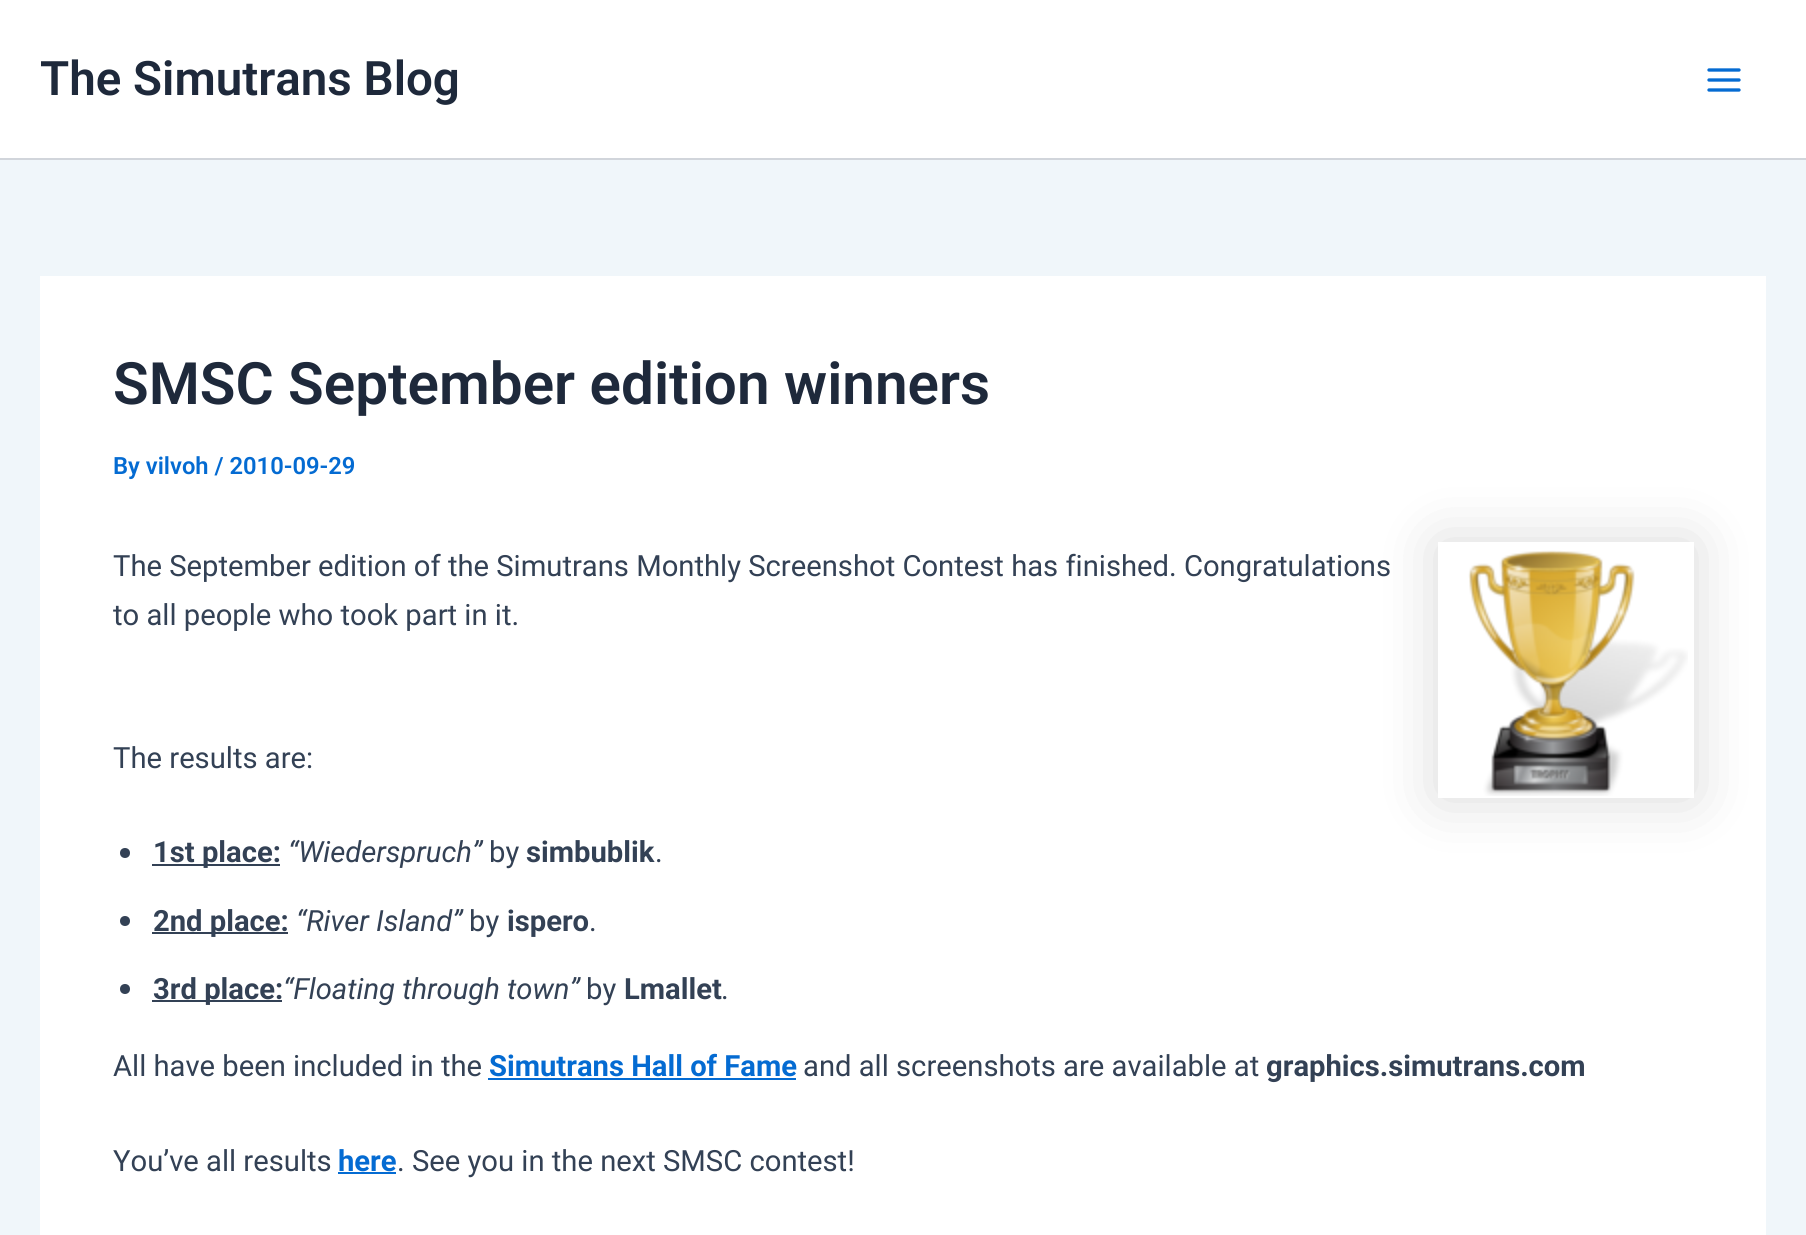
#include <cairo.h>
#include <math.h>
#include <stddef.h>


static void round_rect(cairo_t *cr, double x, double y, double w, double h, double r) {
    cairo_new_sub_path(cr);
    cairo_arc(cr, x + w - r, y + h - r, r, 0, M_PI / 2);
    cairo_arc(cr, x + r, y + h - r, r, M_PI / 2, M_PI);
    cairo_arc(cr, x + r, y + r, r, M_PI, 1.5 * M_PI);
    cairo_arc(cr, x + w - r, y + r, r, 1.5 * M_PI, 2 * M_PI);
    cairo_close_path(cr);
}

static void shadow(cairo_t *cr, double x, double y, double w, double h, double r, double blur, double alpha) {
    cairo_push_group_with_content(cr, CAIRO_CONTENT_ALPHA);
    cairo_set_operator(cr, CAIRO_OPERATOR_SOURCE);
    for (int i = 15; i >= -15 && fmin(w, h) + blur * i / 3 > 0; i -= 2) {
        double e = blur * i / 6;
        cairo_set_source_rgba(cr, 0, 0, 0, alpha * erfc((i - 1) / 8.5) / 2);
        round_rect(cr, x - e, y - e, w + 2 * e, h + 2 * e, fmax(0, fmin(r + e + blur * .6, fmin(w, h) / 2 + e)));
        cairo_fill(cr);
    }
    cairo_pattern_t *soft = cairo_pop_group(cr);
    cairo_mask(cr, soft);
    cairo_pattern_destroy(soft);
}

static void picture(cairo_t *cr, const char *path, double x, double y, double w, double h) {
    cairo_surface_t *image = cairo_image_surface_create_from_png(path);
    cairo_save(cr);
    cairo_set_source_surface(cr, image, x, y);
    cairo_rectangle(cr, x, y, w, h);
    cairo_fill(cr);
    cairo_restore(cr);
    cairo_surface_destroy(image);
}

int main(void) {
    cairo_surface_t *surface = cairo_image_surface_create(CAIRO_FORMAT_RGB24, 1806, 1235);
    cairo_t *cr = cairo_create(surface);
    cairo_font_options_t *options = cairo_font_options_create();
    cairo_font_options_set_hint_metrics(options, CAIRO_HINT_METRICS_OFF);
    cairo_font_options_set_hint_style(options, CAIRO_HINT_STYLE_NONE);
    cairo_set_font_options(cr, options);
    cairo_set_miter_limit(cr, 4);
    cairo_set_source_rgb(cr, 0.941, 0.961, 0.98);
    cairo_paint(cr);
    cairo_set_source_rgb(cr, 1, 1, 1);
    cairo_rectangle(cr, 0, 0, 1806, 158);
    cairo_fill(cr);
    cairo_set_source_rgb(cr, 0.82, 0.835, 0.859);
    cairo_rectangle(cr, 0, 158, 1806, 2);
    cairo_fill(cr);
    cairo_select_font_face(cr, "Roboto SemiBold", CAIRO_FONT_SLANT_NORMAL, CAIRO_FONT_WEIGHT_NORMAL);
    cairo_set_font_size(cr, 47.5);
    cairo_set_source_rgb(cr, 0.118, 0.161, 0.231);
    cairo_move_to(cr, 40, 95);
    cairo_show_text(cr, "The Simutrans Blog");
    picture(cr, "img1.png", 1707, 68, 34, 24);
    cairo_set_source_rgb(cr, 1, 1, 1);
    cairo_rectangle(cr, 40, 276, 1726, 959);
    cairo_fill(cr);
    cairo_set_font_size(cr, 58.4);
    cairo_set_source_rgb(cr, 0.118, 0.161, 0.231);
    cairo_move_to(cr, 113, 404);
    cairo_show_text(cr, "SMSC September edition winners");
    cairo_set_font_size(cr, 23.75);
    cairo_set_source_rgb(cr, 0.016, 0.42, 0.824);
    cairo_move_to(cr, 113, 474);
    cairo_show_text(cr, "By vilvoh / 2010-09-29");
    cairo_save(cr);
    cairo_set_fill_rule(cr, CAIRO_FILL_RULE_EVEN_ODD);
    cairo_new_path(cr);
    cairo_move_to(cr, 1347, 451);
    cairo_line_to(cr, 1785, 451);
    cairo_line_to(cr, 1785, 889);
    cairo_line_to(cr, 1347, 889);
    cairo_close_path(cr);
    cairo_move_to(cr, 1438, 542);
    cairo_line_to(cr, 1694, 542);
    cairo_line_to(cr, 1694, 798);
    cairo_line_to(cr, 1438, 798);
    cairo_close_path(cr);
    cairo_clip(cr);
    cairo_set_source_rgb(cr, 0, 0, 0);
    shadow(cr, 1438, 542, 256, 256, 0, 30, 0.15);
    cairo_restore(cr);
    cairo_select_font_face(cr, "Roboto", CAIRO_FONT_SLANT_NORMAL, CAIRO_FONT_WEIGHT_NORMAL);
    cairo_set_font_size(cr, 29.2);
    cairo_set_source_rgb(cr, 0.2, 0.255, 0.333);
    cairo_move_to(cr, 113, 576);
    cairo_show_text(cr, "The September edition of the Simutrans Monthly Screenshot Contest has finished. Congratulations");
    picture(cr, "img2.png", 1468, 550, 220, 246);
    cairo_move_to(cr, 113, 625);
    cairo_show_text(cr, "to all people who took part in it.");
    cairo_move_to(cr, 113, 768);
    cairo_show_text(cr, "The results are:");
    cairo_new_path(cr);
    cairo_arc(cr, 125, 853, 5, 0, 2 * M_PI);
    cairo_fill(cr);
    cairo_rectangle(cr, 152, 864, 128, 2);
    cairo_fill(cr);
    cairo_select_font_face(cr, "Roboto", CAIRO_FONT_SLANT_NORMAL, CAIRO_FONT_WEIGHT_BOLD);
    cairo_move_to(cr, 153, 862);
    cairo_show_text(cr, "1st place:");
    cairo_select_font_face(cr, "Roboto", CAIRO_FONT_SLANT_ITALIC, CAIRO_FONT_WEIGHT_NORMAL);
    cairo_move_to(cr, 288, 862);
    cairo_show_text(cr, "“Wiederspruch”");
    cairo_select_font_face(cr, "Roboto", CAIRO_FONT_SLANT_NORMAL, CAIRO_FONT_WEIGHT_NORMAL);
    cairo_move_to(cr, 489, 862);
    cairo_show_text(cr, "by");
    cairo_select_font_face(cr, "Roboto", CAIRO_FONT_SLANT_NORMAL, CAIRO_FONT_WEIGHT_BOLD);
    cairo_move_to(cr, 526, 862);
    cairo_show_text(cr, "simbublik");
    cairo_select_font_face(cr, "Roboto", CAIRO_FONT_SLANT_NORMAL, CAIRO_FONT_WEIGHT_NORMAL);
    cairo_move_to(cr, 655, 862);
    cairo_show_text(cr, ".");
    cairo_new_path(cr);
    cairo_arc(cr, 125, 921, 5, 0, 2 * M_PI);
    cairo_fill(cr);
    cairo_rectangle(cr, 152, 932, 136, 2);
    cairo_fill(cr);
    cairo_select_font_face(cr, "Roboto", CAIRO_FONT_SLANT_NORMAL, CAIRO_FONT_WEIGHT_BOLD);
    cairo_move_to(cr, 153, 931);
    cairo_show_text(cr, "2nd place:");
    cairo_select_font_face(cr, "Roboto", CAIRO_FONT_SLANT_ITALIC, CAIRO_FONT_WEIGHT_NORMAL);
    cairo_move_to(cr, 296, 931);
    cairo_show_text(cr, "“River Island”");
    cairo_select_font_face(cr, "Roboto", CAIRO_FONT_SLANT_NORMAL, CAIRO_FONT_WEIGHT_NORMAL);
    cairo_move_to(cr, 469, 931);
    cairo_show_text(cr, "by");
    cairo_select_font_face(cr, "Roboto", CAIRO_FONT_SLANT_NORMAL, CAIRO_FONT_WEIGHT_BOLD);
    cairo_move_to(cr, 507, 931);
    cairo_show_text(cr, "ispero");
    cairo_select_font_face(cr, "Roboto", CAIRO_FONT_SLANT_NORMAL, CAIRO_FONT_WEIGHT_NORMAL);
    cairo_move_to(cr, 589, 931);
    cairo_show_text(cr, ".");
    cairo_new_path(cr);
    cairo_arc(cr, 125, 989, 5, 0, 2 * M_PI);
    cairo_fill(cr);
    cairo_rectangle(cr, 152, 1000, 130, 2);
    cairo_fill(cr);
    cairo_select_font_face(cr, "Roboto", CAIRO_FONT_SLANT_NORMAL, CAIRO_FONT_WEIGHT_BOLD);
    cairo_move_to(cr, 153, 999);
    cairo_show_text(cr, "3rd place:");
    cairo_select_font_face(cr, "Roboto", CAIRO_FONT_SLANT_ITALIC, CAIRO_FONT_WEIGHT_NORMAL);
    cairo_move_to(cr, 283, 999);
    cairo_show_text(cr, "“Floating through town”");
    cairo_select_font_face(cr, "Roboto", CAIRO_FONT_SLANT_NORMAL, CAIRO_FONT_WEIGHT_NORMAL);
    cairo_move_to(cr, 586, 999);
    cairo_show_text(cr, "by");
    cairo_select_font_face(cr, "Roboto", CAIRO_FONT_SLANT_NORMAL, CAIRO_FONT_WEIGHT_BOLD);
    cairo_move_to(cr, 624, 999);
    cairo_show_text(cr, "Lmallet");
    cairo_select_font_face(cr, "Roboto", CAIRO_FONT_SLANT_NORMAL, CAIRO_FONT_WEIGHT_NORMAL);
    cairo_move_to(cr, 721, 999);
    cairo_show_text(cr, ".");
    cairo_move_to(cr, 113, 1076);
    cairo_show_text(cr, "All have been included in the");
    cairo_select_font_face(cr, "Roboto", CAIRO_FONT_SLANT_NORMAL, CAIRO_FONT_WEIGHT_BOLD);
    cairo_set_source_rgb(cr, 0.016, 0.42, 0.824);
    cairo_move_to(cr, 489, 1076);
    cairo_show_text(cr, "Simutrans Hall of Fame");
    cairo_rectangle(cr, 488, 1078, 308, 2);
    cairo_fill(cr);
    cairo_select_font_face(cr, "Roboto", CAIRO_FONT_SLANT_NORMAL, CAIRO_FONT_WEIGHT_NORMAL);
    cairo_set_source_rgb(cr, 0.2, 0.255, 0.333);
    cairo_move_to(cr, 803, 1076);
    cairo_show_text(cr, "and all screenshots are available at");
    cairo_select_font_face(cr, "Roboto", CAIRO_FONT_SLANT_NORMAL, CAIRO_FONT_WEIGHT_BOLD);
    cairo_move_to(cr, 1266, 1076);
    cairo_show_text(cr, "graphics.simutrans.com");
    cairo_select_font_face(cr, "Roboto", CAIRO_FONT_SLANT_NORMAL, CAIRO_FONT_WEIGHT_NORMAL);
    cairo_move_to(cr, 113, 1171);
    cairo_show_text(cr, "You’ve all results");
    cairo_select_font_face(cr, "Roboto", CAIRO_FONT_SLANT_NORMAL, CAIRO_FONT_WEIGHT_BOLD);
    cairo_set_source_rgb(cr, 0.016, 0.42, 0.824);
    cairo_move_to(cr, 338, 1171);
    cairo_show_text(cr, "here");
    cairo_rectangle(cr, 338, 1172, 58, 2);
    cairo_fill(cr);
    cairo_select_font_face(cr, "Roboto", CAIRO_FONT_SLANT_NORMAL, CAIRO_FONT_WEIGHT_NORMAL);
    cairo_set_source_rgb(cr, 0.2, 0.255, 0.333);
    cairo_move_to(cr, 397, 1171);
    cairo_show_text(cr, ". See you in the next SMSC contest!");
    cairo_surface_write_to_png(surface, "page.png");
    cairo_font_options_destroy(options);
    cairo_destroy(cr);
    cairo_surface_destroy(surface);
    return 0;
}
